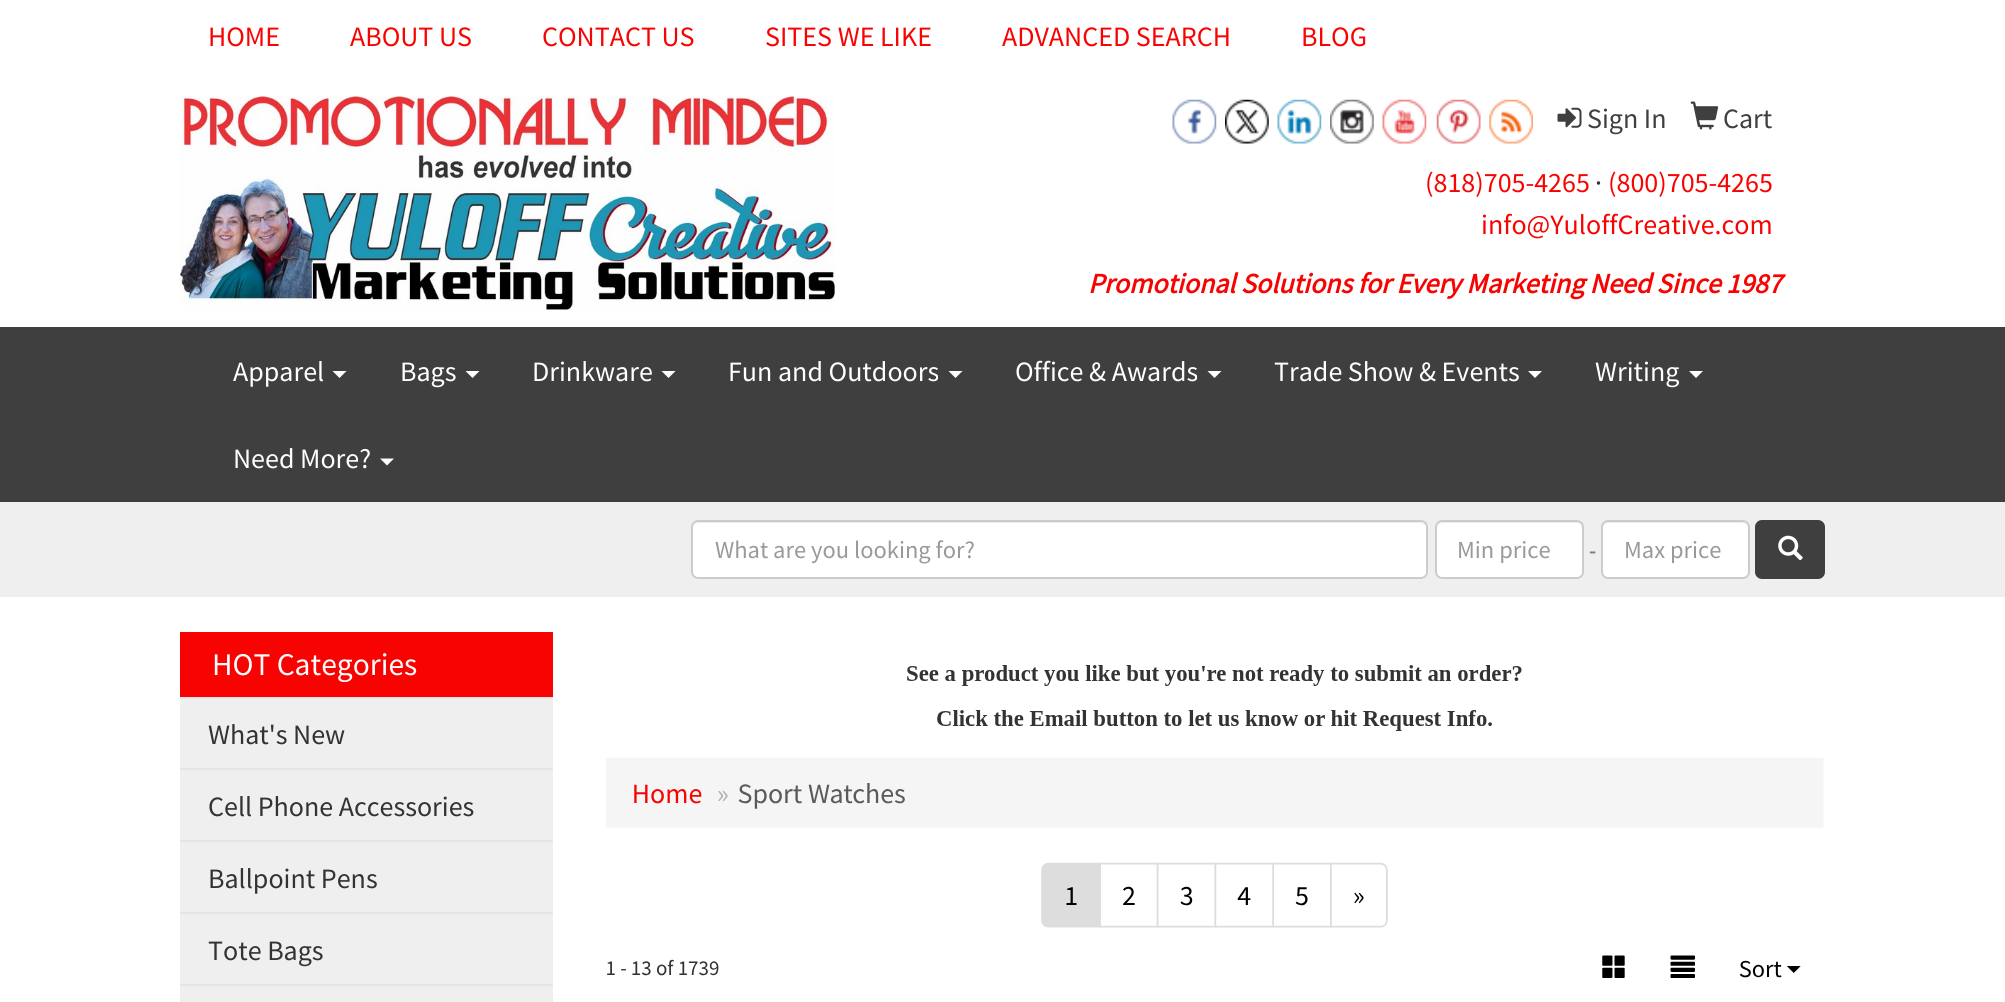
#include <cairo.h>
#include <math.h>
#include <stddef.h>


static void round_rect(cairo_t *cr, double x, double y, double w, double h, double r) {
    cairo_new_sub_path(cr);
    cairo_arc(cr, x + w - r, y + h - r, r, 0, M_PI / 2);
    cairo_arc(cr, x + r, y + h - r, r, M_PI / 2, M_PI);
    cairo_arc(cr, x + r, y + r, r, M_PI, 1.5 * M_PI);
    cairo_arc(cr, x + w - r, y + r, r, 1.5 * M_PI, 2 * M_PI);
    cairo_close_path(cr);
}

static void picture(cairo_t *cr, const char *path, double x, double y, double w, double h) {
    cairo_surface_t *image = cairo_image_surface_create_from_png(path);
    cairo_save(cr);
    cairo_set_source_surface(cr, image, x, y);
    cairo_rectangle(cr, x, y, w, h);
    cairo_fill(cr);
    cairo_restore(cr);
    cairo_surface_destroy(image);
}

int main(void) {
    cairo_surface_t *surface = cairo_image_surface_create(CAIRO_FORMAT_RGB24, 2005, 1002);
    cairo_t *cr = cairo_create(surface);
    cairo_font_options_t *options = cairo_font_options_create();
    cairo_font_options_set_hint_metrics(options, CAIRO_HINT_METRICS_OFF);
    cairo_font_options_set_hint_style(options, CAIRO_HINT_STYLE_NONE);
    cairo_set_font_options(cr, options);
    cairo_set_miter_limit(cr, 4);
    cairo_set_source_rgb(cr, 1, 1, 1);
    cairo_paint(cr);
    cairo_select_font_face(cr, "Source Sans Pro", CAIRO_FONT_SLANT_NORMAL, CAIRO_FONT_WEIGHT_NORMAL);
    cairo_set_font_size(cr, 28);
    cairo_set_source_rgb(cr, 0.965, 0.016, 0.008);
    cairo_move_to(cr, 208, 46);
    cairo_show_text(cr, "HOME");
    cairo_move_to(cr, 350, 46);
    cairo_show_text(cr, "ABOUT US");
    cairo_move_to(cr, 542, 46);
    cairo_show_text(cr, "CONTACT US");
    cairo_move_to(cr, 765, 46);
    cairo_show_text(cr, "SITES WE LIKE");
    cairo_move_to(cr, 1002, 46);
    cairo_show_text(cr, "ADVANCED SEARCH");
    cairo_move_to(cr, 1301, 46);
    cairo_show_text(cr, "BLOG");
    picture(cr, "img1.png", 180, 96, 655, 214);
    picture(cr, "img2.png", 1172, 99, 45, 45);
    picture(cr, "img3.png", 1225, 99, 44, 45);
    picture(cr, "img4.png", 1277, 99, 45, 45);
    picture(cr, "img5.png", 1330, 99, 44, 45);
    picture(cr, "img6.png", 1382, 99, 45, 45);
    picture(cr, "img7.png", 1436, 99, 45, 45);
    picture(cr, "img8.png", 1489, 99, 44, 45);
    picture(cr, "img9.png", 1557, 107, 25, 21);
    cairo_set_source_rgb(cr, 0.247, 0.247, 0.247);
    cairo_move_to(cr, 1587, 128);
    cairo_show_text(cr, "Sign In");
    picture(cr, "img10.png", 1690, 101, 29, 29);
    cairo_move_to(cr, 1723, 128);
    cairo_show_text(cr, "Cart");
    cairo_set_source_rgb(cr, 0.965, 0.016, 0.008);
    cairo_move_to(cr, 1425, 192);
    cairo_show_text(cr, "(818)705-4265");
    cairo_set_source_rgb(cr, 0.2, 0.2, 0.2);
    cairo_move_to(cr, 1595, 192);
    cairo_show_text(cr, "·");
    cairo_set_source_rgb(cr, 0.965, 0.016, 0.008);
    cairo_move_to(cr, 1608, 192);
    cairo_show_text(cr, "(800)705-4265");
    cairo_move_to(cr, 1481, 234);
    cairo_show_text(cr, "info@YuloffCreative.com");
    cairo_select_font_face(cr, "Source Sans Pro", CAIRO_FONT_SLANT_ITALIC, CAIRO_FONT_WEIGHT_BOLD);
    cairo_move_to(cr, 1088, 293);
    cairo_show_text(cr, "Promotional Solutions for Every Marketing Need Since 1987");
    cairo_set_source_rgb(cr, 0.247, 0.247, 0.247);
    cairo_rectangle(cr, 0, 327, 2005, 175);
    cairo_fill(cr);
    cairo_select_font_face(cr, "Source Sans Pro", CAIRO_FONT_SLANT_NORMAL, CAIRO_FONT_WEIGHT_NORMAL);
    cairo_set_source_rgb(cr, 1, 1, 1);
    cairo_move_to(cr, 233, 381);
    cairo_show_text(cr, "Apparel");
    cairo_new_path(cr);
    cairo_move_to(cr, 332.5, 371);
    cairo_line_to(cr, 346.5, 371);
    cairo_line_to(cr, 339.5, 378);
    cairo_close_path(cr);
    cairo_fill(cr);
    cairo_move_to(cr, 400, 381);
    cairo_show_text(cr, "Bags");
    cairo_new_path(cr);
    cairo_move_to(cr, 465.5, 371);
    cairo_line_to(cr, 479.5, 371);
    cairo_line_to(cr, 472.5, 378);
    cairo_close_path(cr);
    cairo_fill(cr);
    cairo_move_to(cr, 532, 381);
    cairo_show_text(cr, "Drinkware");
    cairo_new_path(cr);
    cairo_move_to(cr, 661.5, 371);
    cairo_line_to(cr, 675.5, 371);
    cairo_line_to(cr, 668.5, 378);
    cairo_close_path(cr);
    cairo_fill(cr);
    cairo_move_to(cr, 728, 381);
    cairo_show_text(cr, "Fun and Outdoors");
    cairo_new_path(cr);
    cairo_move_to(cr, 948.5, 371);
    cairo_line_to(cr, 962.5, 371);
    cairo_line_to(cr, 955.5, 378);
    cairo_close_path(cr);
    cairo_fill(cr);
    cairo_move_to(cr, 1015, 381);
    cairo_show_text(cr, "Office & Awards");
    cairo_new_path(cr);
    cairo_move_to(cr, 1207.5, 371);
    cairo_line_to(cr, 1221.5, 371);
    cairo_line_to(cr, 1214.5, 378);
    cairo_close_path(cr);
    cairo_fill(cr);
    cairo_move_to(cr, 1274, 381);
    cairo_show_text(cr, "Trade Show & Events");
    cairo_new_path(cr);
    cairo_move_to(cr, 1528, 371);
    cairo_line_to(cr, 1542, 371);
    cairo_line_to(cr, 1535, 378);
    cairo_close_path(cr);
    cairo_fill(cr);
    cairo_move_to(cr, 1595, 381);
    cairo_show_text(cr, "Writing");
    cairo_new_path(cr);
    cairo_move_to(cr, 1689, 371);
    cairo_line_to(cr, 1703, 371);
    cairo_line_to(cr, 1696, 378);
    cairo_close_path(cr);
    cairo_fill(cr);
    cairo_move_to(cr, 233, 468);
    cairo_show_text(cr, "Need More?");
    cairo_new_path(cr);
    cairo_move_to(cr, 380, 458.5);
    cairo_line_to(cr, 394, 458.5);
    cairo_line_to(cr, 387, 465.5);
    cairo_close_path(cr);
    cairo_fill(cr);
    cairo_set_source_rgb(cr, 0.937, 0.937, 0.937);
    cairo_rectangle(cr, 0, 502, 2005, 95);
    cairo_fill(cr);
    cairo_set_source_rgb(cr, 1, 1, 1);
    round_rect(cr, 691, 520, 737, 59, 7);
    cairo_fill(cr);
    cairo_set_source_rgb(cr, 0.925, 0.925, 0.925);
    cairo_new_path(cr);
    cairo_move_to(cr, 698, 523);
    cairo_line_to(cr, 1421, 523);
    cairo_curve_to(cr, 1424, 523, 1426, 526, 1426, 528);
    cairo_curve_to(cr, 1426, 525, 1424, 522, 1421, 522);
    cairo_line_to(cr, 698, 522);
    cairo_curve_to(cr, 695, 522, 693, 525, 693, 528);
    cairo_curve_to(cr, 693, 526, 695, 523, 698, 523);
    cairo_close_path(cr);
    cairo_fill(cr);
    round_rect(cr, 692, 521, 735, 57, 6);
    cairo_set_source_rgb(cr, 0.8, 0.8, 0.8);
    cairo_stroke(cr);
    cairo_set_font_size(cr, 24.5);
    cairo_set_source_rgb(cr, 0.6, 0.6, 0.6);
    cairo_move_to(cr, 715, 558);
    cairo_show_text(cr, "What are you looking for?");
    cairo_set_source_rgb(cr, 1, 1, 1);
    round_rect(cr, 1435, 520, 149, 59, 7);
    cairo_fill(cr);
    cairo_set_source_rgb(cr, 0.925, 0.925, 0.925);
    cairo_new_path(cr);
    cairo_move_to(cr, 1442, 523);
    cairo_line_to(cr, 1577, 523);
    cairo_curve_to(cr, 1580, 523, 1582, 526, 1582, 528);
    cairo_line_to(cr, 1582, 527);
    cairo_curve_to(cr, 1582, 524, 1580, 522, 1577, 522);
    cairo_line_to(cr, 1442, 522);
    cairo_curve_to(cr, 1439, 522, 1437, 524, 1437, 527);
    cairo_line_to(cr, 1437, 528);
    cairo_curve_to(cr, 1437, 526, 1439, 523, 1442, 523);
    cairo_close_path(cr);
    cairo_fill(cr);
    round_rect(cr, 1436, 521, 147, 57, 6);
    cairo_set_source_rgb(cr, 0.8, 0.8, 0.8);
    cairo_stroke(cr);
    cairo_set_source_rgb(cr, 0.6, 0.6, 0.6);
    cairo_move_to(cr, 1457, 558);
    cairo_show_text(cr, "Min price");
    cairo_select_font_face(cr, "Source Sans Pro", CAIRO_FONT_SLANT_NORMAL, CAIRO_FONT_WEIGHT_BOLD);
    cairo_set_font_size(cr, 21);
    cairo_set_source_rgb(cr, 0.482, 0.482, 0.482);
    cairo_move_to(cr, 1589, 558);
    cairo_show_text(cr, "-");
    cairo_set_source_rgb(cr, 1, 1, 1);
    round_rect(cr, 1601, 520, 149, 59, 7);
    cairo_fill(cr);
    cairo_set_source_rgb(cr, 0.925, 0.925, 0.925);
    cairo_new_path(cr);
    cairo_move_to(cr, 1608, 523);
    cairo_line_to(cr, 1743, 523);
    cairo_curve_to(cr, 1746, 523, 1748, 526, 1748, 528);
    cairo_line_to(cr, 1748, 527);
    cairo_curve_to(cr, 1748, 524, 1746, 522, 1743, 522);
    cairo_line_to(cr, 1608, 522);
    cairo_curve_to(cr, 1605, 522, 1603, 524, 1603, 527);
    cairo_line_to(cr, 1603, 528);
    cairo_curve_to(cr, 1603, 526, 1605, 523, 1608, 523);
    cairo_close_path(cr);
    cairo_fill(cr);
    round_rect(cr, 1602, 521, 147, 57, 6);
    cairo_set_source_rgb(cr, 0.8, 0.8, 0.8);
    cairo_stroke(cr);
    cairo_select_font_face(cr, "Source Sans Pro", CAIRO_FONT_SLANT_NORMAL, CAIRO_FONT_WEIGHT_NORMAL);
    cairo_set_font_size(cr, 24.5);
    cairo_set_source_rgb(cr, 0.6, 0.6, 0.6);
    cairo_move_to(cr, 1624, 558);
    cairo_show_text(cr, "Max price");
    cairo_set_source_rgb(cr, 0.247, 0.247, 0.247);
    round_rect(cr, 1756, 521, 68, 57, 6);
    cairo_fill_preserve(cr);
    cairo_stroke(cr);
    picture(cr, "img11.png", 1778, 535, 25, 26);
    cairo_set_source_rgb(cr, 0.965, 0.016, 0.008);
    cairo_rectangle(cr, 180, 632, 373, 65);
    cairo_fill(cr);
    cairo_set_font_size(cr, 31.5);
    cairo_set_source_rgb(cr, 1, 1, 1);
    cairo_move_to(cr, 212, 675);
    cairo_show_text(cr, "HOT Categories");
    cairo_set_source_rgb(cr, 0.937, 0.937, 0.937);
    cairo_rectangle(cr, 180, 699, 373, 69);
    cairo_fill(cr);
    cairo_set_source_rgb(cr, 0.898, 0.898, 0.898);
    cairo_rectangle(cr, 180, 697, 373, 2);
    cairo_fill(cr);
    cairo_set_font_size(cr, 28);
    cairo_set_source_rgb(cr, 0.2, 0.2, 0.2);
    cairo_move_to(cr, 208, 744);
    cairo_show_text(cr, "What's New");
    cairo_set_source_rgb(cr, 0.937, 0.937, 0.937);
    cairo_rectangle(cr, 180, 770, 373, 70);
    cairo_fill(cr);
    cairo_set_source_rgb(cr, 0.898, 0.898, 0.898);
    cairo_rectangle(cr, 180, 768, 373, 2);
    cairo_fill(cr);
    cairo_set_source_rgb(cr, 0.2, 0.2, 0.2);
    cairo_move_to(cr, 208, 816);
    cairo_show_text(cr, "Cell Phone Accessories");
    cairo_set_source_rgb(cr, 0.937, 0.937, 0.937);
    cairo_rectangle(cr, 180, 842, 373, 70);
    cairo_fill(cr);
    cairo_set_source_rgb(cr, 0.898, 0.898, 0.898);
    cairo_rectangle(cr, 180, 840, 373, 2);
    cairo_fill(cr);
    cairo_set_source_rgb(cr, 0.2, 0.2, 0.2);
    cairo_move_to(cr, 208, 888);
    cairo_show_text(cr, "Ballpoint Pens");
    cairo_set_source_rgb(cr, 0.937, 0.937, 0.937);
    cairo_rectangle(cr, 180, 914, 373, 70);
    cairo_fill(cr);
    cairo_set_source_rgb(cr, 0.898, 0.898, 0.898);
    cairo_rectangle(cr, 180, 912, 373, 2);
    cairo_fill(cr);
    cairo_set_source_rgb(cr, 0.2, 0.2, 0.2);
    cairo_move_to(cr, 208, 960);
    cairo_show_text(cr, "Tote Bags");
    cairo_set_source_rgb(cr, 0.937, 0.937, 0.937);
    cairo_rectangle(cr, 180, 986, 373, 16);
    cairo_fill(cr);
    cairo_set_source_rgb(cr, 0.898, 0.898, 0.898);
    cairo_rectangle(cr, 180, 984, 373, 2);
    cairo_fill(cr);
    picture(cr, "img12.png", 606, 665, 1218, 313);
    cairo_surface_write_to_png(surface, "page.png");
    cairo_font_options_destroy(options);
    cairo_destroy(cr);
    cairo_surface_destroy(surface);
    return 0;
}
